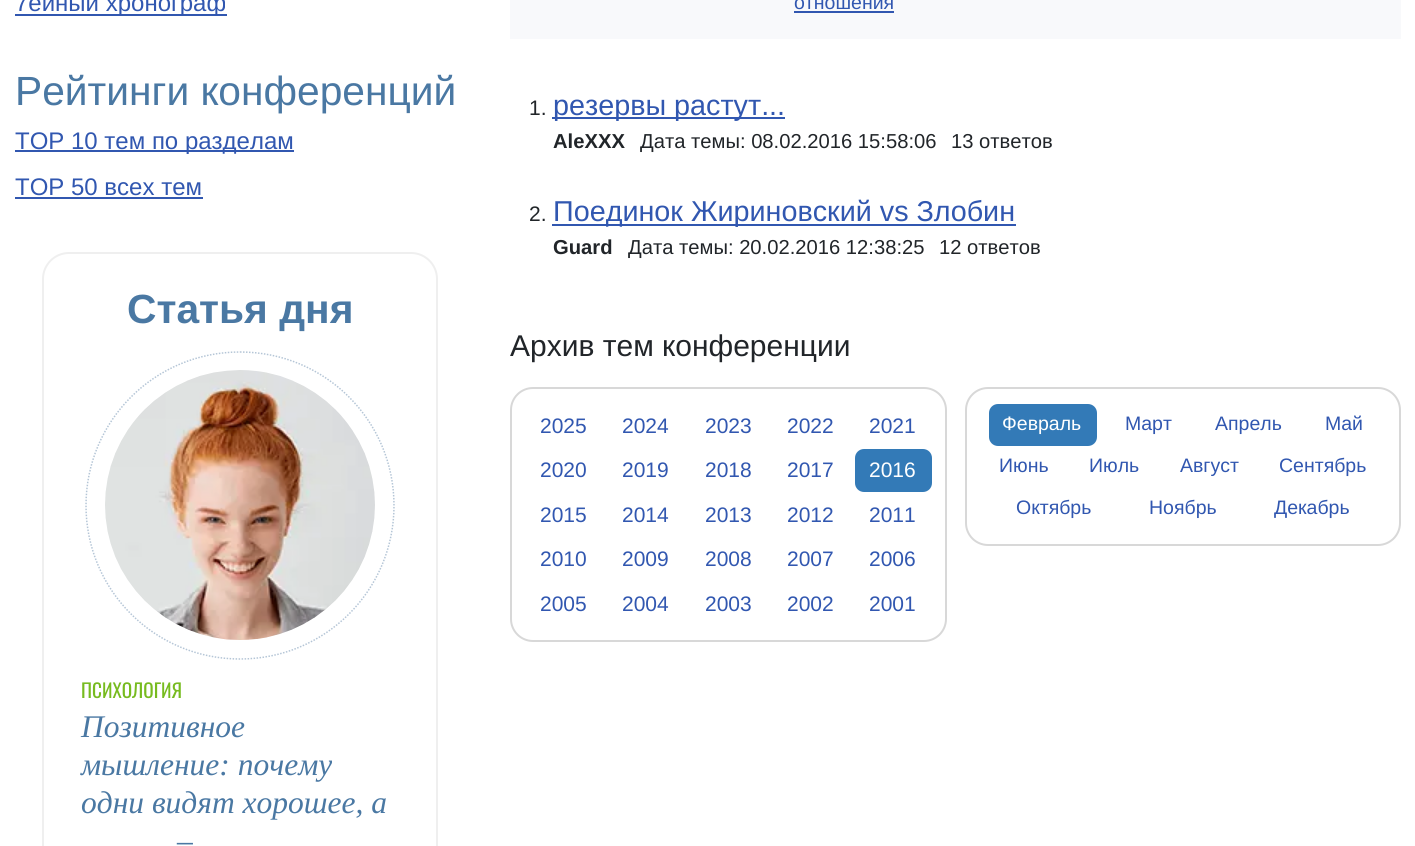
#include <cairo.h>
#include <math.h>
#include <stddef.h>


static void round_rect(cairo_t *cr, double x, double y, double w, double h, double r) {
    cairo_new_sub_path(cr);
    cairo_arc(cr, x + w - r, y + h - r, r, 0, M_PI / 2);
    cairo_arc(cr, x + r, y + h - r, r, M_PI / 2, M_PI);
    cairo_arc(cr, x + r, y + r, r, M_PI, 1.5 * M_PI);
    cairo_arc(cr, x + w - r, y + r, r, 1.5 * M_PI, 2 * M_PI);
    cairo_close_path(cr);
}

static void picture(cairo_t *cr, const char *path, double x, double y, double w, double h) {
    cairo_surface_t *image = cairo_image_surface_create_from_png(path);
    cairo_save(cr);
    cairo_set_source_surface(cr, image, x, y);
    cairo_rectangle(cr, x, y, w, h);
    cairo_fill(cr);
    cairo_restore(cr);
    cairo_surface_destroy(image);
}

int main(void) {
    cairo_surface_t *surface = cairo_image_surface_create(CAIRO_FORMAT_RGB24, 1415, 846);
    cairo_t *cr = cairo_create(surface);
    cairo_font_options_t *options = cairo_font_options_create();
    cairo_font_options_set_hint_metrics(options, CAIRO_HINT_METRICS_OFF);
    cairo_font_options_set_hint_style(options, CAIRO_HINT_STYLE_NONE);
    cairo_set_font_options(cr, options);
    cairo_set_miter_limit(cr, 4);
    cairo_set_source_rgb(cr, 1, 1, 1);
    cairo_paint(cr);
    cairo_set_source_rgb(cr, 0.192, 0.341, 0.69);
    cairo_rectangle(cr, 15, 14, 212, 2);
    cairo_fill(cr);
    cairo_select_font_face(cr, "Liberation Sans", CAIRO_FONT_SLANT_NORMAL, CAIRO_FONT_WEIGHT_NORMAL);
    cairo_set_font_size(cr, 24);
    cairo_move_to(cr, 15, 11);
    cairo_show_text(cr, "7ейный хронограф");
    cairo_set_font_size(cr, 40.75);
    cairo_set_source_rgb(cr, 0.29, 0.471, 0.639);
    cairo_move_to(cr, 15, 105);
    cairo_show_text(cr, "Рейтинги конференций");
    cairo_set_source_rgb(cr, 0.192, 0.341, 0.69);
    cairo_rectangle(cr, 15, 150, 279, 2);
    cairo_fill(cr);
    cairo_set_font_size(cr, 24);
    cairo_move_to(cr, 15, 149);
    cairo_show_text(cr, "TOP 10 тем по разделам");
    cairo_move_to(cr, 15, 195);
    cairo_show_text(cr, "TOP 50 всех тем");
    cairo_rectangle(cr, 15, 197, 188, 2);
    cairo_fill(cr);
    round_rect(cr, 43, 253, 394, 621, 26);
    cairo_set_source_rgb(cr, 0.937, 0.937, 0.937);
    cairo_stroke(cr);
    cairo_select_font_face(cr, "Liberation Sans", CAIRO_FONT_SLANT_NORMAL, CAIRO_FONT_WEIGHT_BOLD);
    cairo_set_font_size(cr, 40.75);
    cairo_set_source_rgb(cr, 0.29, 0.471, 0.639);
    cairo_move_to(cr, 127, 323);
    cairo_show_text(cr, "Статья дня");
    cairo_new_path(cr);
    cairo_move_to(cr, 240, 352);
    cairo_curve_to(cr, 325, 352, 394, 420.5, 394, 505.5);
    cairo_curve_to(cr, 394, 590.5, 325, 659, 240, 659);
    cairo_curve_to(cr, 155, 659, 86, 590.5, 86, 505.5);
    cairo_curve_to(cr, 86, 420.5, 155, 352, 240, 352);
    cairo_close_path(cr);
    cairo_set_source_rgb(cr, 0.706, 0.773, 0.839);
    cairo_set_line_width(cr, 1.5);
    cairo_set_dash(cr, (double[]){1.5, 1.5}, 2, 0);
    cairo_stroke(cr);
    picture(cr, "img1.png", 105, 370, 270, 270);
    cairo_select_font_face(cr, "Oswald", CAIRO_FONT_SLANT_NORMAL, CAIRO_FONT_WEIGHT_NORMAL);
    cairo_set_font_size(cr, 19.25);
    cairo_set_source_rgb(cr, 0.467, 0.733, 0.122);
    cairo_move_to(cr, 81, 698);
    cairo_show_text(cr, "ПСИХОЛОГИЯ");
    cairo_select_font_face(cr, "Liberation Serif", CAIRO_FONT_SLANT_ITALIC, CAIRO_FONT_WEIGHT_NORMAL);
    cairo_set_font_size(cr, 31.5);
    cairo_set_source_rgb(cr, 0.29, 0.471, 0.639);
    cairo_move_to(cr, 81, 737);
    cairo_show_text(cr, "Позитивное");
    cairo_move_to(cr, 81, 775);
    cairo_show_text(cr, "мышление: почему");
    cairo_move_to(cr, 81, 813);
    cairo_show_text(cr, "одни видят хорошее, а");
    cairo_move_to(cr, 177, 851);
    cairo_show_text(cr, "–");
    cairo_set_source_rgb(cr, 0.969, 0.976, 0.984);
    cairo_rectangle(cr, 510, 0, 891, 39);
    cairo_fill(cr);
    cairo_select_font_face(cr, "Liberation Sans", CAIRO_FONT_SLANT_NORMAL, CAIRO_FONT_WEIGHT_NORMAL);
    cairo_set_font_size(cr, 19.5);
    cairo_set_source_rgb(cr, 0.192, 0.341, 0.69);
    cairo_move_to(cr, 794, 9);
    cairo_show_text(cr, "отношения");
    cairo_rectangle(cr, 794, 11, 100, 2);
    cairo_fill(cr);
    cairo_set_font_size(cr, 21);
    cairo_set_source_rgb(cr, 0.129, 0.145, 0.161);
    cairo_move_to(cr, 529, 115);
    cairo_show_text(cr, "1.");
    cairo_set_source_rgb(cr, 0.192, 0.341, 0.69);
    cairo_rectangle(cr, 552, 117, 233, 2);
    cairo_fill(cr);
    cairo_set_font_size(cr, 28.75);
    cairo_move_to(cr, 553, 115);
    cairo_show_text(cr, "резервы растут...");
    cairo_select_font_face(cr, "Liberation Sans", CAIRO_FONT_SLANT_NORMAL, CAIRO_FONT_WEIGHT_BOLD);
    cairo_set_font_size(cr, 20.2);
    cairo_set_source_rgb(cr, 0.129, 0.145, 0.161);
    cairo_move_to(cr, 553, 148);
    cairo_show_text(cr, "AleXXX");
    cairo_select_font_face(cr, "Liberation Sans", CAIRO_FONT_SLANT_NORMAL, CAIRO_FONT_WEIGHT_NORMAL);
    cairo_move_to(cr, 640, 148);
    cairo_show_text(cr, "Дата темы: 08.02.2016 15:58:06");
    cairo_move_to(cr, 951, 148);
    cairo_show_text(cr, "13 ответов");
    cairo_set_font_size(cr, 21);
    cairo_move_to(cr, 529, 221);
    cairo_show_text(cr, "2.");
    cairo_set_source_rgb(cr, 0.192, 0.341, 0.69);
    cairo_rectangle(cr, 552, 224, 464, 2);
    cairo_fill(cr);
    cairo_set_font_size(cr, 28.75);
    cairo_move_to(cr, 553, 221);
    cairo_show_text(cr, "Поединок Жириновский vs Злобин");
    cairo_select_font_face(cr, "Liberation Sans", CAIRO_FONT_SLANT_NORMAL, CAIRO_FONT_WEIGHT_BOLD);
    cairo_set_font_size(cr, 20.2);
    cairo_set_source_rgb(cr, 0.129, 0.145, 0.161);
    cairo_move_to(cr, 553, 254);
    cairo_show_text(cr, "Guard");
    cairo_select_font_face(cr, "Liberation Sans", CAIRO_FONT_SLANT_NORMAL, CAIRO_FONT_WEIGHT_NORMAL);
    cairo_move_to(cr, 628, 254);
    cairo_show_text(cr, "Дата темы: 20.02.2016 12:38:25");
    cairo_move_to(cr, 939, 254);
    cairo_show_text(cr, "12 ответов");
    cairo_set_font_size(cr, 30);
    cairo_move_to(cr, 510, 356);
    cairo_show_text(cr, "Архив тем конференции");
    round_rect(cr, 511, 388, 435, 253, 22);
    cairo_set_source_rgb(cr, 0.847, 0.847, 0.847);
    cairo_set_line_width(cr, 2);
    cairo_set_dash(cr, NULL, 0, 0);
    cairo_stroke(cr);
    cairo_set_font_size(cr, 21);
    cairo_set_source_rgb(cr, 0.192, 0.341, 0.69);
    cairo_move_to(cr, 540, 433);
    cairo_show_text(cr, "2025");
    cairo_move_to(cr, 622, 433);
    cairo_show_text(cr, "2024");
    cairo_move_to(cr, 705, 433);
    cairo_show_text(cr, "2023");
    cairo_move_to(cr, 787, 433);
    cairo_show_text(cr, "2022");
    cairo_move_to(cr, 869, 433);
    cairo_show_text(cr, "2021");
    cairo_move_to(cr, 540, 477);
    cairo_show_text(cr, "2020");
    cairo_move_to(cr, 622, 477);
    cairo_show_text(cr, "2019");
    cairo_move_to(cr, 705, 477);
    cairo_show_text(cr, "2018");
    cairo_move_to(cr, 787, 477);
    cairo_show_text(cr, "2017");
    cairo_set_source_rgb(cr, 0.2, 0.478, 0.718);
    round_rect(cr, 855, 449, 77, 43, 9);
    cairo_fill(cr);
    cairo_set_source_rgb(cr, 1, 1, 1);
    cairo_move_to(cr, 869, 477);
    cairo_show_text(cr, "2016");
    cairo_set_source_rgb(cr, 0.192, 0.341, 0.69);
    cairo_move_to(cr, 540, 522);
    cairo_show_text(cr, "2015");
    cairo_move_to(cr, 622, 522);
    cairo_show_text(cr, "2014");
    cairo_move_to(cr, 705, 522);
    cairo_show_text(cr, "2013");
    cairo_move_to(cr, 787, 522);
    cairo_show_text(cr, "2012");
    cairo_move_to(cr, 869, 522);
    cairo_show_text(cr, "2011");
    cairo_move_to(cr, 540, 566);
    cairo_show_text(cr, "2010");
    cairo_move_to(cr, 622, 566);
    cairo_show_text(cr, "2009");
    cairo_move_to(cr, 705, 566);
    cairo_show_text(cr, "2008");
    cairo_move_to(cr, 787, 566);
    cairo_show_text(cr, "2007");
    cairo_move_to(cr, 869, 566);
    cairo_show_text(cr, "2006");
    cairo_move_to(cr, 540, 611);
    cairo_show_text(cr, "2005");
    cairo_move_to(cr, 622, 611);
    cairo_show_text(cr, "2004");
    cairo_move_to(cr, 705, 611);
    cairo_show_text(cr, "2003");
    cairo_move_to(cr, 787, 611);
    cairo_show_text(cr, "2002");
    cairo_move_to(cr, 869, 611);
    cairo_show_text(cr, "2001");
    round_rect(cr, 966, 388, 434, 157, 22);
    cairo_set_source_rgb(cr, 0.847, 0.847, 0.847);
    cairo_stroke(cr);
    cairo_set_source_rgb(cr, 0.2, 0.478, 0.718);
    round_rect(cr, 989, 404, 108, 42, 9);
    cairo_fill(cr);
    cairo_set_font_size(cr, 19.5);
    cairo_set_source_rgb(cr, 1, 1, 1);
    cairo_move_to(cr, 1002, 430);
    cairo_show_text(cr, "Февраль");
    cairo_set_source_rgb(cr, 0.192, 0.341, 0.69);
    cairo_move_to(cr, 1125, 430);
    cairo_show_text(cr, "Март");
    cairo_move_to(cr, 1215, 430);
    cairo_show_text(cr, "Апрель");
    cairo_move_to(cr, 1325, 430);
    cairo_show_text(cr, "Май");
    cairo_move_to(cr, 999, 472);
    cairo_show_text(cr, "Июнь");
    cairo_move_to(cr, 1089, 472);
    cairo_show_text(cr, "Июль");
    cairo_move_to(cr, 1180, 472);
    cairo_show_text(cr, "Август");
    cairo_move_to(cr, 1279, 472);
    cairo_show_text(cr, "Сентябрь");
    cairo_move_to(cr, 1016, 514);
    cairo_show_text(cr, "Октябрь");
    cairo_move_to(cr, 1149, 514);
    cairo_show_text(cr, "Ноябрь");
    cairo_move_to(cr, 1274, 514);
    cairo_show_text(cr, "Декабрь");
    cairo_surface_write_to_png(surface, "page.png");
    cairo_font_options_destroy(options);
    cairo_destroy(cr);
    cairo_surface_destroy(surface);
    return 0;
}
